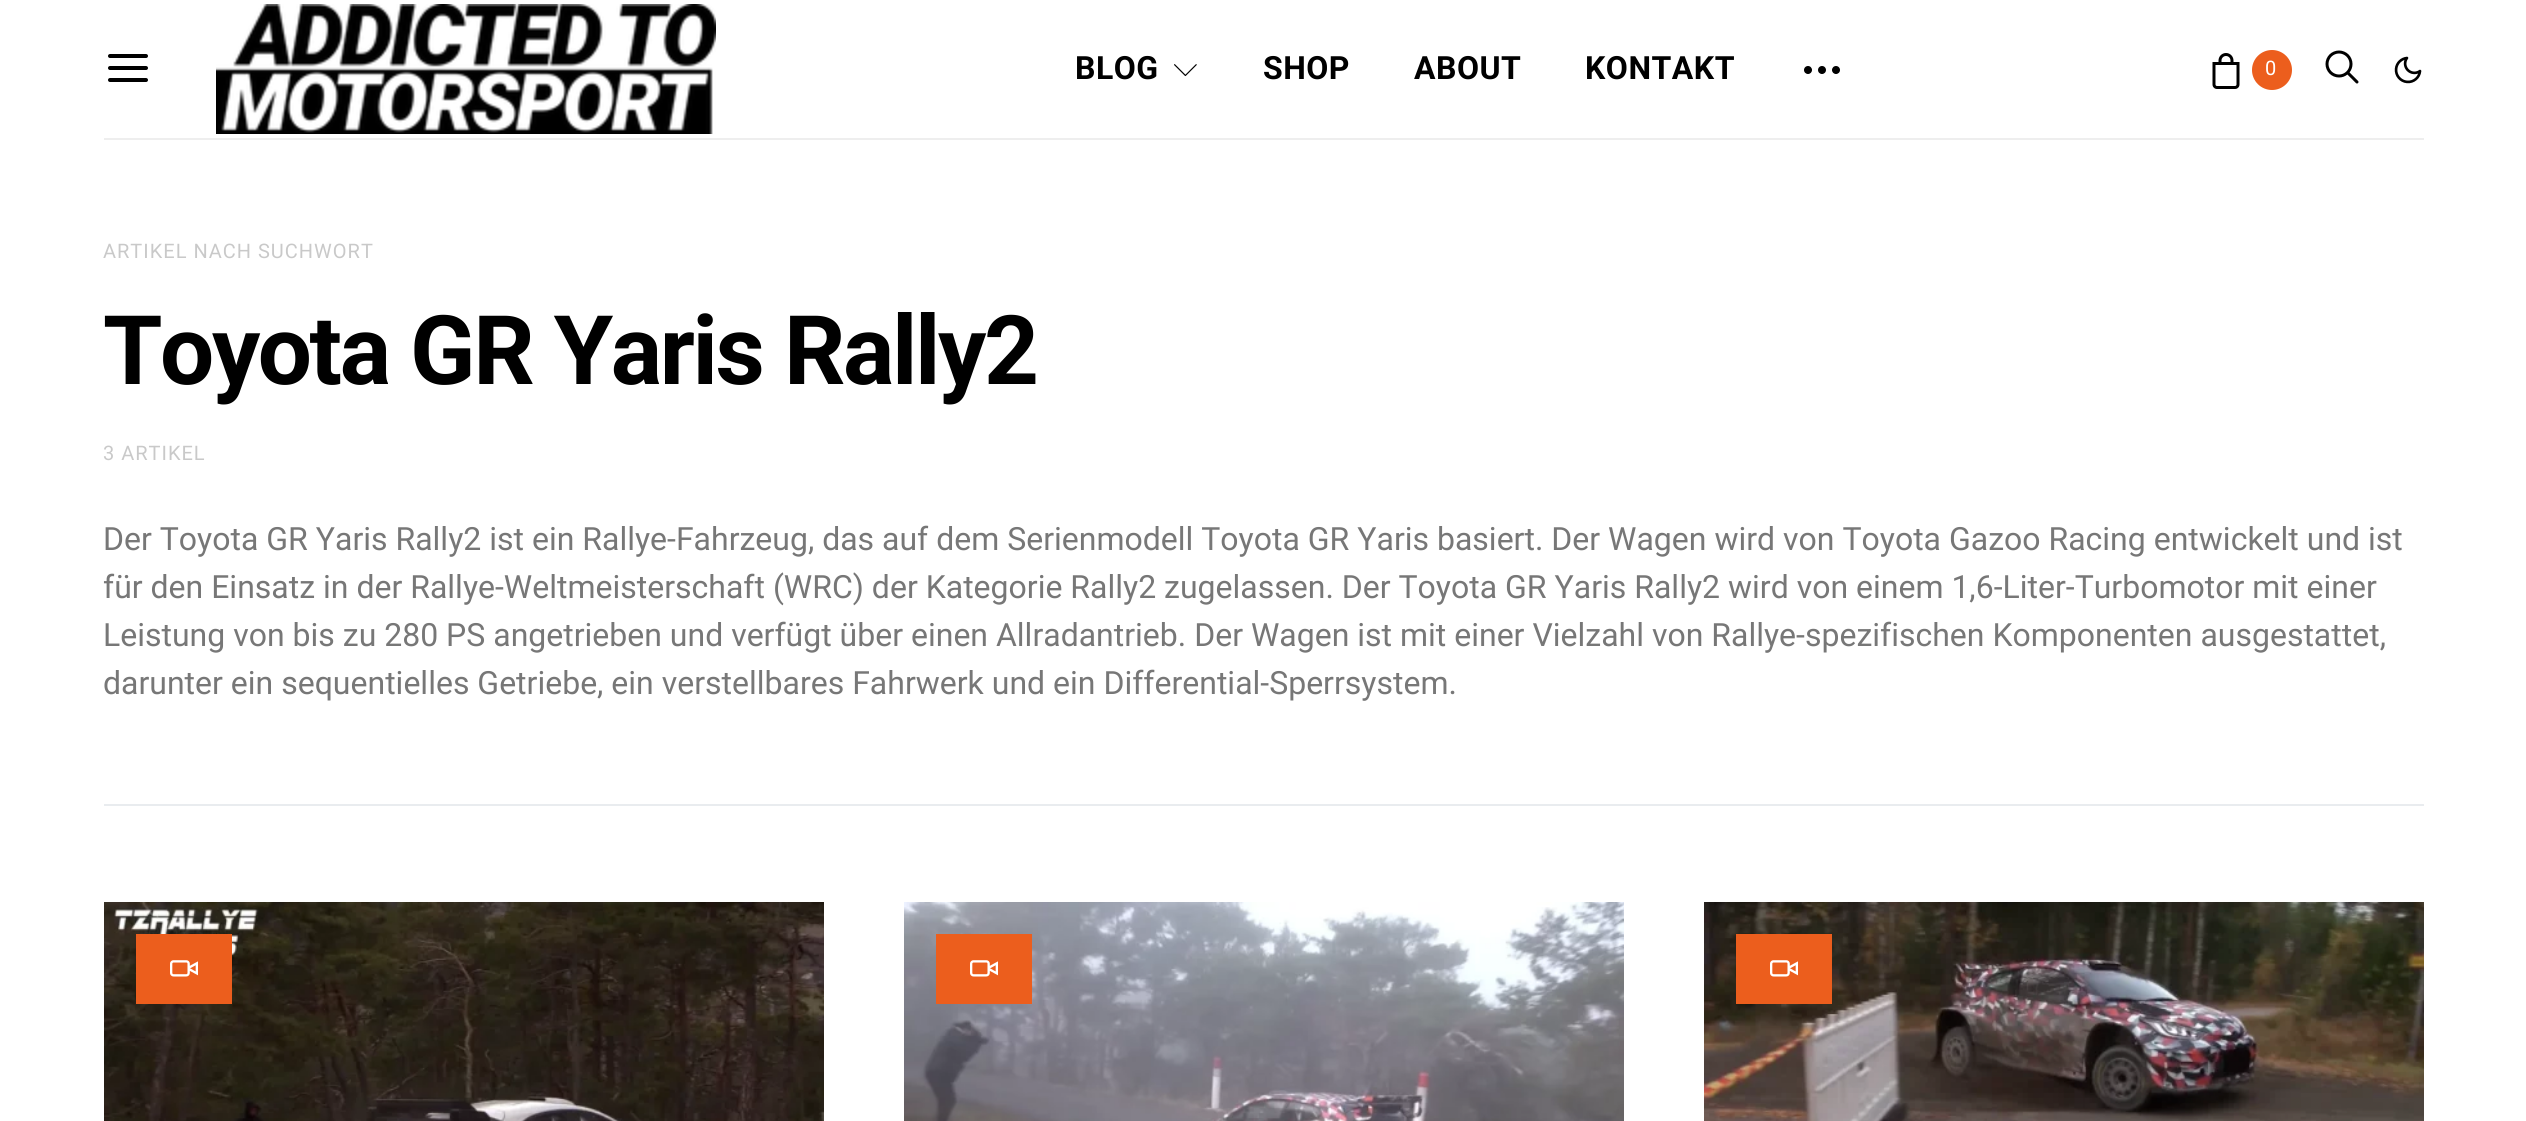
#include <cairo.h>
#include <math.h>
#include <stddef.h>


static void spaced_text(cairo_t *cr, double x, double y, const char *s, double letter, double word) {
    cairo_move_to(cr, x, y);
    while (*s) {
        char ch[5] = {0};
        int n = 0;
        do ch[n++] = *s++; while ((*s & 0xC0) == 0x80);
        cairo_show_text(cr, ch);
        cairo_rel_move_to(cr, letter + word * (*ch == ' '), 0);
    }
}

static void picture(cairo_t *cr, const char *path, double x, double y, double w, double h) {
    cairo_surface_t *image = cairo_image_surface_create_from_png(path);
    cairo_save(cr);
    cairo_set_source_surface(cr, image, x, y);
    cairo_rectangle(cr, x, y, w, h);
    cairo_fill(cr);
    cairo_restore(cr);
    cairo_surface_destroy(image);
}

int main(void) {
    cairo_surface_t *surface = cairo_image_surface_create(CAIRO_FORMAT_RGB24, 2526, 1121);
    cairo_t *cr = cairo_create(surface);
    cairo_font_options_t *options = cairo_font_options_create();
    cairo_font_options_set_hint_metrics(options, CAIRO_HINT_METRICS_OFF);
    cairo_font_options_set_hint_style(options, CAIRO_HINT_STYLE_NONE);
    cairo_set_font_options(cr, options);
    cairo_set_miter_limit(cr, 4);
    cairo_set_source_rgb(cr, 1, 1, 1);
    cairo_paint(cr);
    cairo_set_source_rgb(cr, 0.933, 0.933, 0.933);
    cairo_rectangle(cr, 104, 138, 2320, 2);
    cairo_fill(cr);
    picture(cr, "img1.png", 108, 54, 40, 28);
    picture(cr, "img2.png", 216, 4, 500, 130);
    cairo_select_font_face(cr, "Roboto", CAIRO_FONT_SLANT_NORMAL, CAIRO_FONT_WEIGHT_BOLD);
    cairo_set_font_size(cr, 32);
    cairo_set_source_rgb(cr, 0, 0, 0);
    spaced_text(cr, 1075, 79, "BLOG", 0.5, 0);
    picture(cr, "img3.png", 1174, 64, 23, 13);
    spaced_text(cr, 1263, 79, "SHOP", 0.5, 0);
    spaced_text(cr, 1414, 79, "ABOUT", 0.5, 0);
    spaced_text(cr, 1585, 79, "KONTAKT", 0.5, 0);
    picture(cr, "img4.png", 1804, 66, 36, 8);
    picture(cr, "img5.png", 2212, 53, 28, 36);
    cairo_set_source_rgb(cr, 0.922, 0.369, 0.114);
    cairo_arc(cr, 2272, 70, 20, 0, 2 * M_PI);
    cairo_fill(cr);
    cairo_select_font_face(cr, "Roboto", CAIRO_FONT_SLANT_NORMAL, CAIRO_FONT_WEIGHT_NORMAL);
    cairo_set_font_size(cr, 20);
    cairo_set_source_rgb(cr, 1, 1, 1);
    spaced_text(cr, 2265, 75, "0", 1, 0);
    picture(cr, "img6.png", 2325, 50, 34, 34);
    picture(cr, "img7.png", 2394, 56, 28, 28);
    cairo_set_source_rgb(cr, 0.788, 0.788, 0.788);
    spaced_text(cr, 103, 258, "ARTIKEL NACH SUCHWORT", 1, 0);
    cairo_select_font_face(cr, "Roboto", CAIRO_FONT_SLANT_NORMAL, CAIRO_FONT_WEIGHT_BOLD);
    cairo_set_font_size(cr, 96);
    cairo_set_source_rgb(cr, 0, 0, 0);
    spaced_text(cr, 103, 384, "Toyota GR Yaris Rally2", -2.4, 0);
    cairo_select_font_face(cr, "Roboto", CAIRO_FONT_SLANT_NORMAL, CAIRO_FONT_WEIGHT_NORMAL);
    cairo_set_font_size(cr, 20);
    cairo_set_source_rgb(cr, 0.788, 0.788, 0.788);
    spaced_text(cr, 103, 460, "3 ARTIKEL", 1, 0);
    cairo_set_font_size(cr, 32);
    cairo_set_source_rgb(cr, 0.467, 0.467, 0.467);
    cairo_move_to(cr, 103, 550);
    cairo_show_text(cr, "Der Toyota GR Yaris Rally2 ist ein Rallye-Fahrzeug, das auf dem Serienmodell Toyota GR Yaris basiert. Der Wagen wird von Toyota Gazoo Racing entwickelt und ist");
    cairo_move_to(cr, 103, 598);
    cairo_show_text(cr, "für den Einsatz in der Rallye-Weltmeisterschaft (WRC) der Kategorie Rally2 zugelassen. Der Toyota GR Yaris Rally2 wird von einem 1,6-Liter-Turbomotor mit einer");
    cairo_move_to(cr, 103, 646);
    cairo_show_text(cr, "Leistung von bis zu 280 PS angetrieben und verfügt über einen Allradantrieb. Der Wagen ist mit einer Vielzahl von Rallye-spezifischen Komponenten ausgestattet,");
    cairo_move_to(cr, 103, 694);
    cairo_show_text(cr, "darunter ein sequentielles Getriebe, ein verstellbares Fahrwerk und ein Differential-Sperrsystem.");
    cairo_set_source_rgb(cr, 0.914, 0.925, 0.937);
    cairo_rectangle(cr, 104, 804, 2320, 2);
    cairo_fill(cr);
    picture(cr, "img8.png", 104, 902, 720, 219);
    cairo_set_source_rgb(cr, 0.922, 0.369, 0.114);
    cairo_rectangle(cr, 136, 934, 96, 70);
    cairo_fill(cr);
    picture(cr, "img9.png", 170, 960, 28, 17);
    picture(cr, "img10.png", 904, 902, 720, 219);
    cairo_rectangle(cr, 936, 934, 96, 70);
    cairo_fill(cr);
    picture(cr, "img9.png", 970, 960, 28, 17);
    picture(cr, "img11.png", 1704, 902, 720, 219);
    cairo_rectangle(cr, 1736, 934, 96, 70);
    cairo_fill(cr);
    picture(cr, "img9.png", 1770, 960, 28, 17);
    cairo_surface_write_to_png(surface, "page.png");
    cairo_font_options_destroy(options);
    cairo_destroy(cr);
    cairo_surface_destroy(surface);
    return 0;
}
